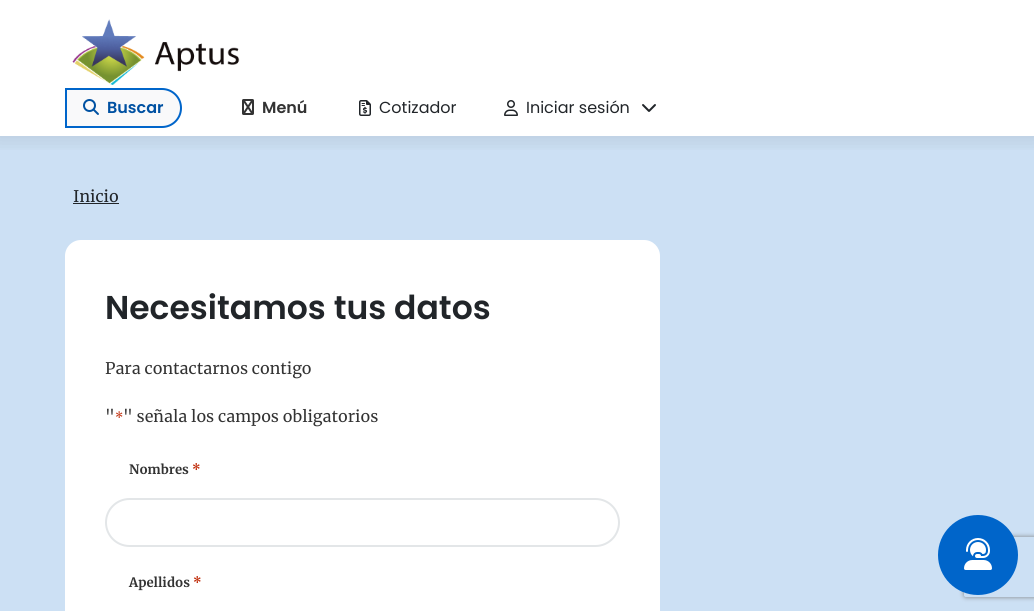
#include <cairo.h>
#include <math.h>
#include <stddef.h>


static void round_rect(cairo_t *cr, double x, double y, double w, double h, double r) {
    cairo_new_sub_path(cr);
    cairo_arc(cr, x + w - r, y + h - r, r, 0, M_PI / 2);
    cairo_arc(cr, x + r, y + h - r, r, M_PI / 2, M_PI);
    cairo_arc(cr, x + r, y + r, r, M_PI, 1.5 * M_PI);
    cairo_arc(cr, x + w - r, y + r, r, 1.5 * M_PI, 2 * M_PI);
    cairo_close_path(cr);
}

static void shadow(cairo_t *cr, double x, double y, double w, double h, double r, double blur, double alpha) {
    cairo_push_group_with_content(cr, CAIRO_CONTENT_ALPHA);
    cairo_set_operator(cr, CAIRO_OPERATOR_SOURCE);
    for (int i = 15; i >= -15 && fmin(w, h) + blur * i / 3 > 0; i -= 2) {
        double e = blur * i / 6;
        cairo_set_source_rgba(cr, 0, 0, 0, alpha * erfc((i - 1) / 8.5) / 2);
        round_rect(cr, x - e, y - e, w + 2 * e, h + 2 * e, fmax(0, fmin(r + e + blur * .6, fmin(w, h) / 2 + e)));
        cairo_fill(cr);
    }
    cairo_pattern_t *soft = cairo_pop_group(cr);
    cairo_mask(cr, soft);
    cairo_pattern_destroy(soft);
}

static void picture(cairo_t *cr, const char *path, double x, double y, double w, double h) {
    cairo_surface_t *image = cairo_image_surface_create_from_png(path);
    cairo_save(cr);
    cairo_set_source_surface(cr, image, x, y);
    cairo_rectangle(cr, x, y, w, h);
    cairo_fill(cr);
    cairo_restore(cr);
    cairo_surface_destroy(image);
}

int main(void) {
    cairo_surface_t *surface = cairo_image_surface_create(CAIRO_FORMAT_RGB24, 1034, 611);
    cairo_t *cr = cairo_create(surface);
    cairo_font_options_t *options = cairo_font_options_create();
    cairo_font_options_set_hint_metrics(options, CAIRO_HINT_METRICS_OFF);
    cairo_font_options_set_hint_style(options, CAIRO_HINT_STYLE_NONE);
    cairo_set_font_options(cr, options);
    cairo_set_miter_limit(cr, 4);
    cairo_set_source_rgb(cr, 0.8, 0.878, 0.957);
    cairo_paint(cr);
    cairo_set_source_rgb(cr, 1, 1, 1);
    cairo_rectangle(cr, 0, 0, 1034, 136);
    cairo_fill(cr);
    cairo_save(cr);
    cairo_rectangle(cr, 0, 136, 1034, 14);
    cairo_clip(cr);
    cairo_set_source_rgb(cr, 0.2, 0.2, 0.2);
    shadow(cr, -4, -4, 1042, 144, 0, 10, 0.12);
    cairo_restore(cr);
    picture(cr, "img1.png", 72, 19, 168, 66);
    cairo_set_source_rgb(cr, 0.973, 0.976, 0.98);
    cairo_new_path(cr);
    cairo_move_to(cr, 66, 89);
    cairo_line_to(cr, 162, 89);
    cairo_curve_to(cr, 172.5, 89, 181, 97.5, 181, 108);
    cairo_curve_to(cr, 181, 118.5, 172.5, 127, 162, 127);
    cairo_line_to(cr, 66, 127);
    cairo_close_path(cr);
    cairo_fill_preserve(cr);
    cairo_set_source_rgb(cr, 0, 0.396, 0.792);
    cairo_stroke(cr);
    picture(cr, "img2.png", 83, 99, 16, 16);
    cairo_select_font_face(cr, "Poppins SemiBold", CAIRO_FONT_SLANT_NORMAL, CAIRO_FONT_WEIGHT_NORMAL);
    cairo_set_font_size(cr, 16);
    cairo_set_source_rgb(cr, 0, 0.318, 0.635);
    cairo_move_to(cr, 107, 113);
    cairo_show_text(cr, "Buscar");
    picture(cr, "img3.png", 242, 99, 12, 16);
    cairo_set_source_rgb(cr, 0.2, 0.2, 0.2);
    cairo_move_to(cr, 262, 113);
    cairo_show_text(cr, "Menú");
    picture(cr, "img4.png", 359, 100, 12, 16);
    cairo_select_font_face(cr, "Poppins", CAIRO_FONT_SLANT_NORMAL, CAIRO_FONT_WEIGHT_NORMAL);
    cairo_set_source_rgb(cr, 0.129, 0.145, 0.161);
    cairo_move_to(cr, 379, 113);
    cairo_show_text(cr, "Cotizador");
    picture(cr, "img5.png", 504, 100, 14, 16);
    cairo_move_to(cr, 526, 113);
    cairo_show_text(cr, "Iniciar sesión");
    picture(cr, "img6.png", 642, 104, 14, 8);
    cairo_select_font_face(cr, "Merriweather", CAIRO_FONT_SLANT_NORMAL, CAIRO_FONT_WEIGHT_NORMAL);
    cairo_move_to(cr, 73, 202);
    cairo_show_text(cr, "Inicio");
    cairo_rectangle(cr, 73, 203, 46, 1);
    cairo_fill(cr);
    cairo_set_source_rgb(cr, 1, 1, 1);
    round_rect(cr, 65, 240, 595, 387, 16);
    cairo_fill(cr);
    cairo_select_font_face(cr, "Poppins SemiBold", CAIRO_FONT_SLANT_NORMAL, CAIRO_FONT_WEIGHT_NORMAL);
    cairo_set_font_size(cr, 33);
    cairo_set_source_rgb(cr, 0.129, 0.145, 0.161);
    cairo_move_to(cr, 105, 319);
    cairo_show_text(cr, "Necesitamos tus datos");
    cairo_select_font_face(cr, "Merriweather", CAIRO_FONT_SLANT_NORMAL, CAIRO_FONT_WEIGHT_NORMAL);
    cairo_set_font_size(cr, 16);
    cairo_set_source_rgb(cr, 0.2, 0.2, 0.2);
    cairo_move_to(cr, 105, 374);
    cairo_show_text(cr, "Para contactarnos contigo");
    cairo_move_to(cr, 105, 422);
    cairo_show_text(cr, "\"");
    cairo_set_font_size(cr, 13);
    cairo_set_source_rgb(cr, 0.753, 0.169, 0.039);
    cairo_move_to(cr, 115, 422);
    cairo_show_text(cr, "*");
    cairo_set_font_size(cr, 16);
    cairo_set_source_rgb(cr, 0.2, 0.2, 0.2);
    cairo_move_to(cr, 123, 422);
    cairo_show_text(cr, "\" señala los campos obligatorios");
    cairo_select_font_face(cr, "Merriweather", CAIRO_FONT_SLANT_NORMAL, CAIRO_FONT_WEIGHT_BOLD);
    cairo_set_font_size(cr, 13);
    cairo_move_to(cr, 129, 474);
    cairo_show_text(cr, "Nombres");
    cairo_set_source_rgb(cr, 0.753, 0.169, 0.039);
    cairo_move_to(cr, 192, 474);
    cairo_show_text(cr, "*");
    round_rect(cr, 106, 499, 513, 47, 23.5);
    cairo_set_source_rgb(cr, 0.89, 0.902, 0.91);
    cairo_stroke(cr);
    cairo_set_source_rgb(cr, 0.2, 0.2, 0.2);
    cairo_move_to(cr, 129, 587);
    cairo_show_text(cr, "Apellidos");
    cairo_set_source_rgb(cr, 0.753, 0.169, 0.039);
    cairo_move_to(cr, 193, 587);
    cairo_show_text(cr, "*");
    cairo_save(cr);
    cairo_set_fill_rule(cr, CAIRO_FILL_RULE_EVEN_ODD);
    cairo_new_path(cr);
    cairo_move_to(cr, 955, 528);
    cairo_line_to(cr, 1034, 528);
    cairo_line_to(cr, 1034, 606);
    cairo_line_to(cr, 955, 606);
    cairo_close_path(cr);
    cairo_move_to(cr, 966, 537);
    cairo_line_to(cr, 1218, 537);
    cairo_curve_to(cr, 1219, 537, 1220, 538, 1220, 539);
    cairo_line_to(cr, 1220, 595);
    cairo_curve_to(cr, 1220, 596, 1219, 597, 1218, 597);
    cairo_line_to(cr, 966, 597);
    cairo_curve_to(cr, 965, 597, 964, 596, 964, 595);
    cairo_line_to(cr, 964, 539);
    cairo_curve_to(cr, 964, 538, 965, 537, 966, 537);
    cairo_close_path(cr);
    cairo_clip(cr);
    cairo_set_source_rgb(cr, 0.502, 0.502, 0.502);
    shadow(cr, 964, 537, 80, 60, 2, 2.5, 1);
    cairo_restore(cr);
    cairo_set_source_rgb(cr, 0, 0.396, 0.792);
    cairo_arc(cr, 978, 555, 40, 0, 2 * M_PI);
    cairo_fill(cr);
    picture(cr, "img7.png", 964, 538, 28, 32);
    cairo_surface_write_to_png(surface, "page.png");
    cairo_font_options_destroy(options);
    cairo_destroy(cr);
    cairo_surface_destroy(surface);
    return 0;
}
